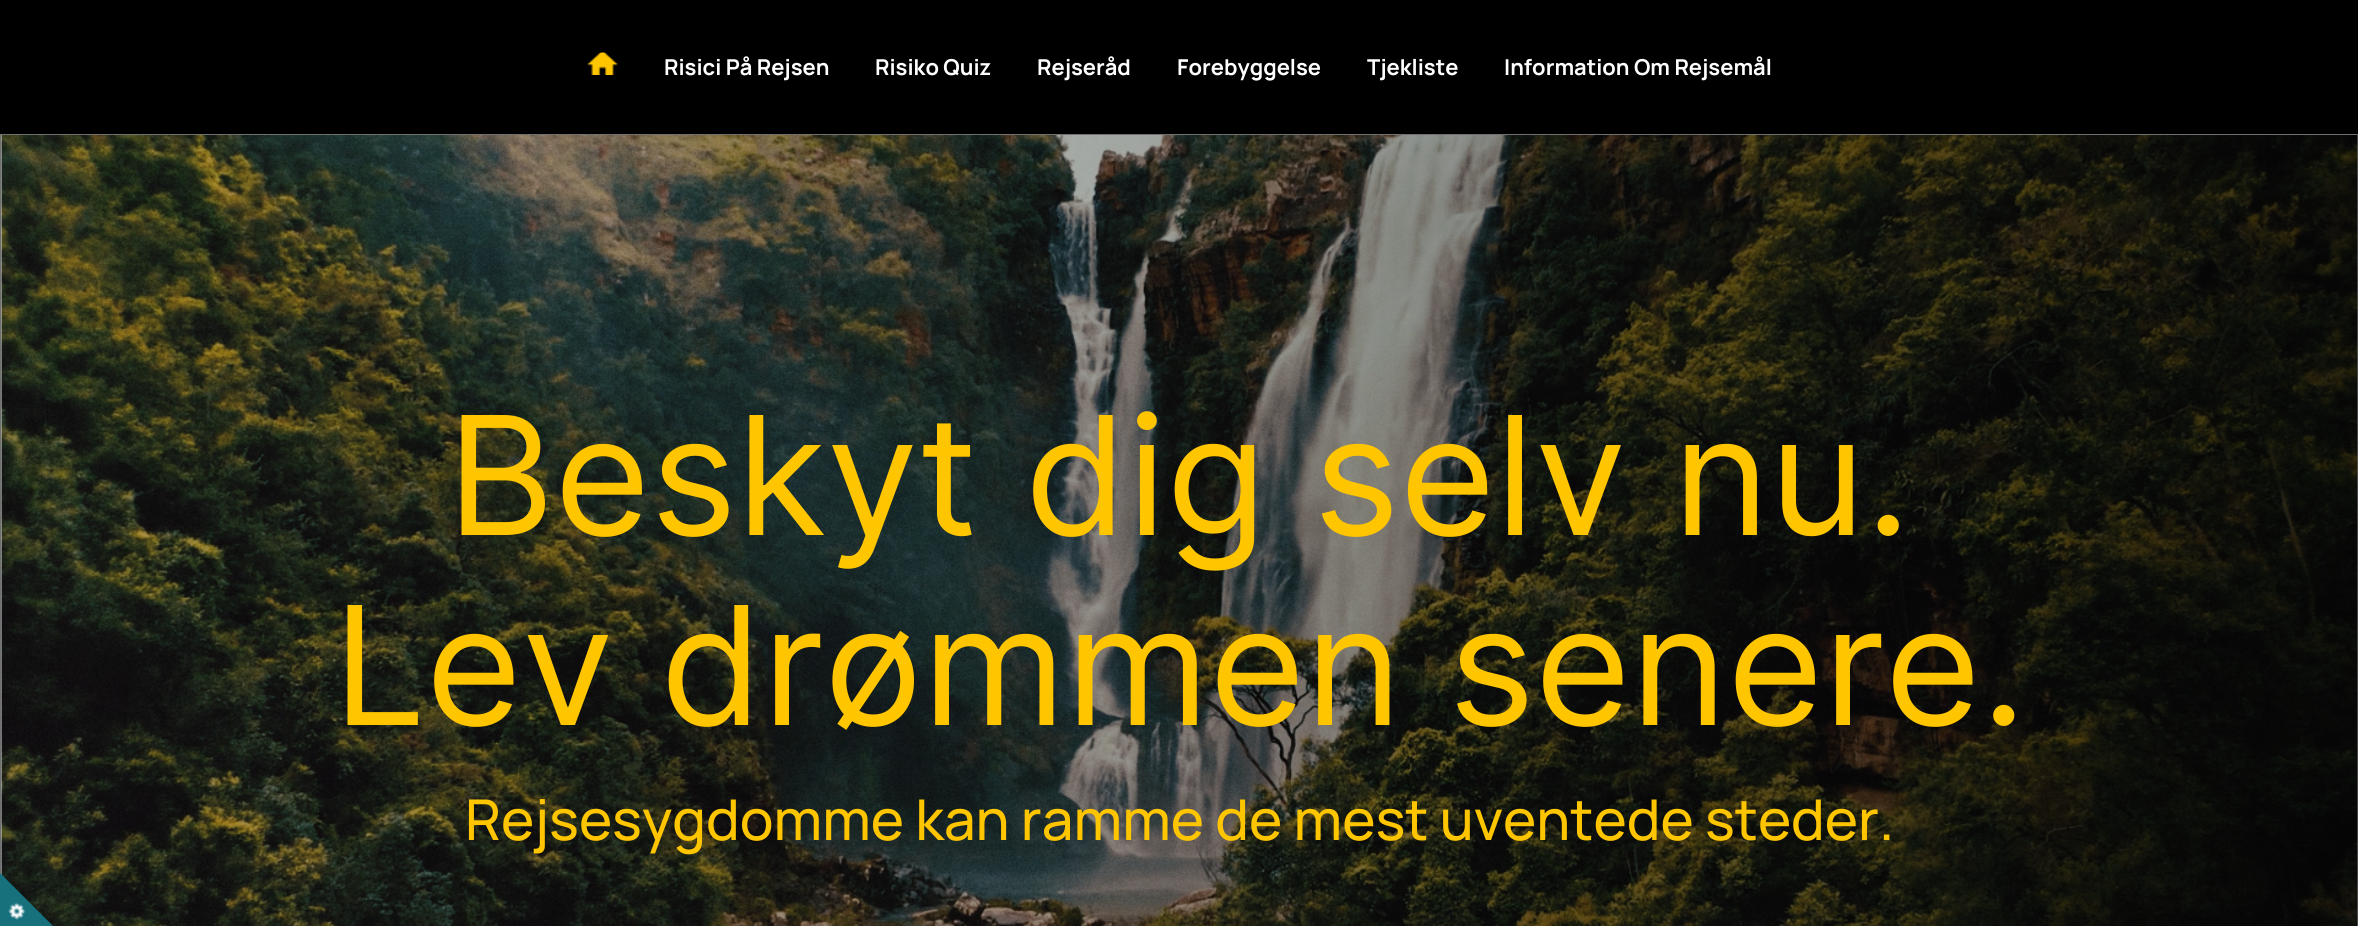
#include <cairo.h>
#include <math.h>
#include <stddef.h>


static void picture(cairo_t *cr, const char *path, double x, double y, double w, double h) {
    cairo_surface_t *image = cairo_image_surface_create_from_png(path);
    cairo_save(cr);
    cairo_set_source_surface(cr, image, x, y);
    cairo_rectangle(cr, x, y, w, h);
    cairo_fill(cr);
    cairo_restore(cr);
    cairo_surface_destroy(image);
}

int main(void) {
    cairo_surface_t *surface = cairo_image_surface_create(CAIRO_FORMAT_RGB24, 2358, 926);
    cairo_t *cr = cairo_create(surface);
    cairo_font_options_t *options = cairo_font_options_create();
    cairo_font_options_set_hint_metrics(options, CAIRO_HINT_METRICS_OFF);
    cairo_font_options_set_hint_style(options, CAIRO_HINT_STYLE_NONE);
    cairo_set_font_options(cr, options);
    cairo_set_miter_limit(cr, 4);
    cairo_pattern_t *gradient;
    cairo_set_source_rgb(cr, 1, 1, 1);
    cairo_paint(cr);
    cairo_set_source_rgb(cr, 0, 0, 0);
    cairo_rectangle(cr, 0, 0, 2358, 134);
    cairo_fill(cr);
    picture(cr, "img1.png", 587, 52, 31, 23);
    cairo_select_font_face(cr, "Manrope", CAIRO_FONT_SLANT_NORMAL, CAIRO_FONT_WEIGHT_BOLD);
    cairo_set_font_size(cr, 21.9);
    cairo_set_source_rgb(cr, 1, 1, 1);
    cairo_move_to(cr, 664, 75);
    cairo_show_text(cr, "Risici På Rejsen");
    cairo_move_to(cr, 875, 75);
    cairo_show_text(cr, "Risiko Quiz");
    cairo_move_to(cr, 1037, 75);
    cairo_show_text(cr, "Rejseråd");
    cairo_move_to(cr, 1177, 75);
    cairo_show_text(cr, "Forebyggelse");
    cairo_move_to(cr, 1367, 75);
    cairo_show_text(cr, "Tjekliste");
    cairo_move_to(cr, 1504, 75);
    cairo_show_text(cr, "Information Om Rejsemål");
    cairo_rectangle(cr, 0.5, 134.5, 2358, 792);
    cairo_set_source_rgb(cr, 0.439, 0.439, 0.439);
    cairo_set_line_width(cr, 1);
    cairo_stroke(cr);
    picture(cr, "img2.png", 1, 135, 2357, 791);
    gradient = cairo_pattern_create_linear(1.2, 798, 2358, 798);
    cairo_pattern_add_color_stop_rgba(gradient, 0, 0, 0, 0, 0);
    cairo_pattern_add_color_stop_rgba(gradient, 1, 0, 0, 0, 0.64);
    cairo_set_source(cr, gradient);
    cairo_pattern_destroy(gradient);
    cairo_rectangle(cr, 81, 135, 2277, 791);
    cairo_fill(cr);
    cairo_select_font_face(cr, "Inter", CAIRO_FONT_SLANT_NORMAL, CAIRO_FONT_WEIGHT_NORMAL);
    cairo_set_font_size(cr, 165);
    cairo_set_source_rgb(cr, 1, 0.776, 0);
    cairo_move_to(cr, 447, 535);
    cairo_show_text(cr, "Beskyt dig selv nu.");
    cairo_move_to(cr, 333, 725);
    cairo_show_text(cr, "Lev drømmen senere.");
    cairo_select_font_face(cr, "Manrope Medium", CAIRO_FONT_SLANT_NORMAL, CAIRO_FONT_WEIGHT_NORMAL);
    cairo_set_font_size(cr, 56.25);
    cairo_move_to(cr, 465, 840);
    cairo_show_text(cr, "Rejsesygdomme kan ramme de mest uventede steder.");
    cairo_set_source_rgb(cr, 0.09, 0.443, 0.49);
    cairo_new_path(cr);
    cairo_move_to(cr, 0, 873);
    cairo_line_to(cr, 53, 926);
    cairo_line_to(cr, 0, 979);
    cairo_line_to(cr, -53, 926);
    cairo_close_path(cr);
    cairo_fill(cr);
    picture(cr, "img3.png", 8, 902, 18, 18);
    cairo_surface_write_to_png(surface, "page.png");
    cairo_font_options_destroy(options);
    cairo_destroy(cr);
    cairo_surface_destroy(surface);
    return 0;
}
